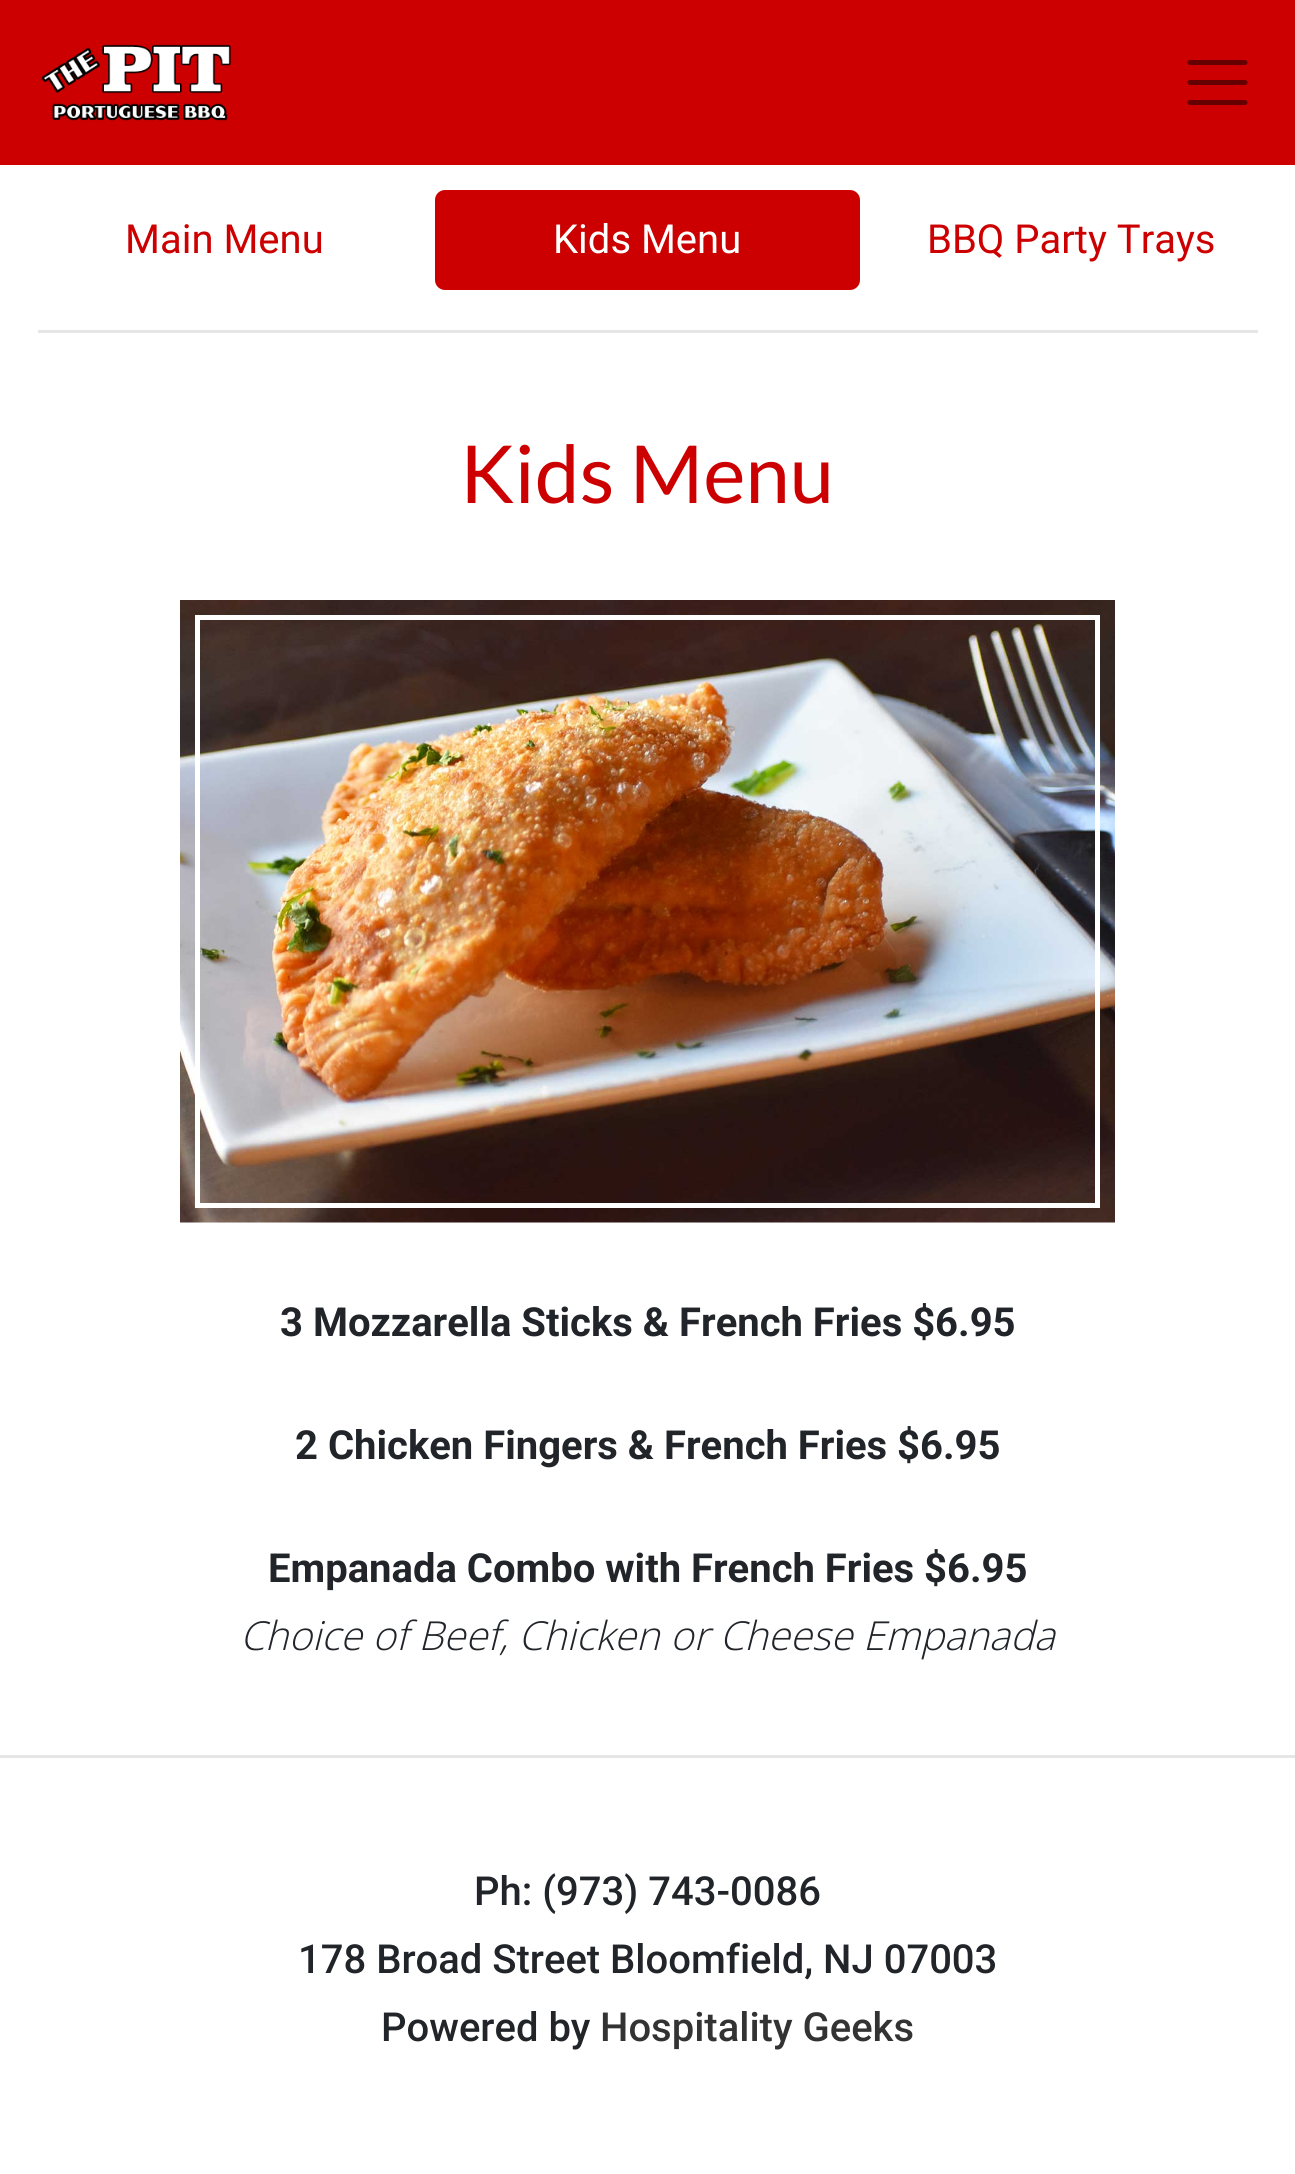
#include <cairo.h>
#include <math.h>
#include <stddef.h>


static void round_rect(cairo_t *cr, double x, double y, double w, double h, double r) {
    cairo_new_sub_path(cr);
    cairo_arc(cr, x + w - r, y + h - r, r, 0, M_PI / 2);
    cairo_arc(cr, x + r, y + h - r, r, M_PI / 2, M_PI);
    cairo_arc(cr, x + r, y + r, r, M_PI, 1.5 * M_PI);
    cairo_arc(cr, x + w - r, y + r, r, 1.5 * M_PI, 2 * M_PI);
    cairo_close_path(cr);
}

static void picture(cairo_t *cr, const char *path, double x, double y, double w, double h) {
    cairo_surface_t *image = cairo_image_surface_create_from_png(path);
    cairo_save(cr);
    cairo_set_source_surface(cr, image, x, y);
    cairo_rectangle(cr, x, y, w, h);
    cairo_fill(cr);
    cairo_restore(cr);
    cairo_surface_destroy(image);
}

int main(void) {
    cairo_surface_t *surface = cairo_image_surface_create(CAIRO_FORMAT_RGB24, 1295, 2174);
    cairo_t *cr = cairo_create(surface);
    cairo_font_options_t *options = cairo_font_options_create();
    cairo_font_options_set_hint_metrics(options, CAIRO_HINT_METRICS_OFF);
    cairo_font_options_set_hint_style(options, CAIRO_HINT_STYLE_NONE);
    cairo_set_font_options(cr, options);
    cairo_set_miter_limit(cr, 4);
    cairo_set_source_rgb(cr, 1, 1, 1);
    cairo_paint(cr);
    cairo_set_source_rgb(cr, 0.8, 0, 0);
    cairo_rectangle(cr, 0, 0, 1295, 165);
    cairo_fill(cr);
    picture(cr, "img1.png", 41, 44, 191, 77);
    cairo_new_path(cr);
    cairo_move_to(cr, 1190, 62.5);
    cairo_line_to(cr, 1245, 62.5);
    cairo_move_to(cr, 1190, 82.5);
    cairo_line_to(cr, 1245, 82.5);
    cairo_move_to(cr, 1190, 102.5);
    cairo_line_to(cr, 1245, 102.5);
    cairo_set_source_rgb(cr, 0.4, 0, 0);
    cairo_set_line_width(cr, 5);
    cairo_set_line_cap(cr, CAIRO_LINE_CAP_ROUND);
    cairo_stroke(cr);
    cairo_select_font_face(cr, "Roboto", CAIRO_FONT_SLANT_NORMAL, CAIRO_FONT_WEIGHT_NORMAL);
    cairo_set_font_size(cr, 40);
    cairo_set_source_rgb(cr, 0.8, 0, 0);
    cairo_move_to(cr, 125, 253);
    cairo_show_text(cr, "Main Menu");
    round_rect(cr, 435, 190, 425, 100, 10);
    cairo_fill(cr);
    cairo_set_source_rgb(cr, 1, 1, 1);
    cairo_move_to(cr, 553, 253);
    cairo_show_text(cr, "Kids Menu");
    cairo_set_source_rgb(cr, 0.8, 0, 0);
    cairo_move_to(cr, 927, 253);
    cairo_show_text(cr, "BBQ Party Trays");
    cairo_set_source_rgb(cr, 0.902, 0.902, 0.902);
    cairo_rectangle(cr, 38, 330, 1220, 3);
    cairo_fill(cr);
    cairo_select_font_face(cr, "Lato", CAIRO_FONT_SLANT_NORMAL, CAIRO_FONT_WEIGHT_NORMAL);
    cairo_set_font_size(cr, 80);
    cairo_set_source_rgb(cr, 0.8, 0, 0);
    cairo_move_to(cr, 460, 503);
    cairo_show_text(cr, "Kids Menu");
    picture(cr, "img2.png", 180, 600, 935, 623);
    cairo_rectangle(cr, 197.5, 617.5, 900, 588);
    cairo_set_source_rgb(cr, 1, 1, 1);
    cairo_set_line_cap(cr, CAIRO_LINE_CAP_BUTT);
    cairo_stroke(cr);
    cairo_select_font_face(cr, "Roboto", CAIRO_FONT_SLANT_NORMAL, CAIRO_FONT_WEIGHT_BOLD);
    cairo_set_font_size(cr, 40);
    cairo_set_source_rgb(cr, 0.129, 0.145, 0.161);
    cairo_move_to(cr, 280, 1336);
    cairo_show_text(cr, "3 Mozzarella Sticks & French Fries $6.95");
    cairo_move_to(cr, 295, 1459);
    cairo_show_text(cr, "2 Chicken Fingers & French Fries $6.95");
    cairo_move_to(cr, 268, 1582);
    cairo_show_text(cr, "Empanada Combo with French Fries $6.95");
    cairo_select_font_face(cr, "Open Sans Light", CAIRO_FONT_SLANT_ITALIC, CAIRO_FONT_WEIGHT_NORMAL);
    cairo_move_to(cr, 240, 1650);
    cairo_show_text(cr, "Choice of Beef, Chicken or Cheese Empanada");
    cairo_set_source_rgb(cr, 0.902, 0.902, 0.902);
    cairo_rectangle(cr, 0, 1755, 1295, 3);
    cairo_fill(cr);
    cairo_select_font_face(cr, "Roboto Medium", CAIRO_FONT_SLANT_NORMAL, CAIRO_FONT_WEIGHT_NORMAL);
    cairo_set_source_rgb(cr, 0.129, 0.145, 0.161);
    cairo_move_to(cr, 474, 1905);
    cairo_show_text(cr, "Ph: (973) 743-0086");
    cairo_move_to(cr, 298, 1973);
    cairo_show_text(cr, "178 Broad Street Bloomfield, NJ 07003");
    cairo_move_to(cr, 381, 2041);
    cairo_show_text(cr, "Powered by");
    cairo_set_source_rgb(cr, 0.2, 0.2, 0.2);
    cairo_move_to(cr, 600, 2041);
    cairo_show_text(cr, "Hospitality Geeks");
    cairo_surface_write_to_png(surface, "page.png");
    cairo_font_options_destroy(options);
    cairo_destroy(cr);
    cairo_surface_destroy(surface);
    return 0;
}
